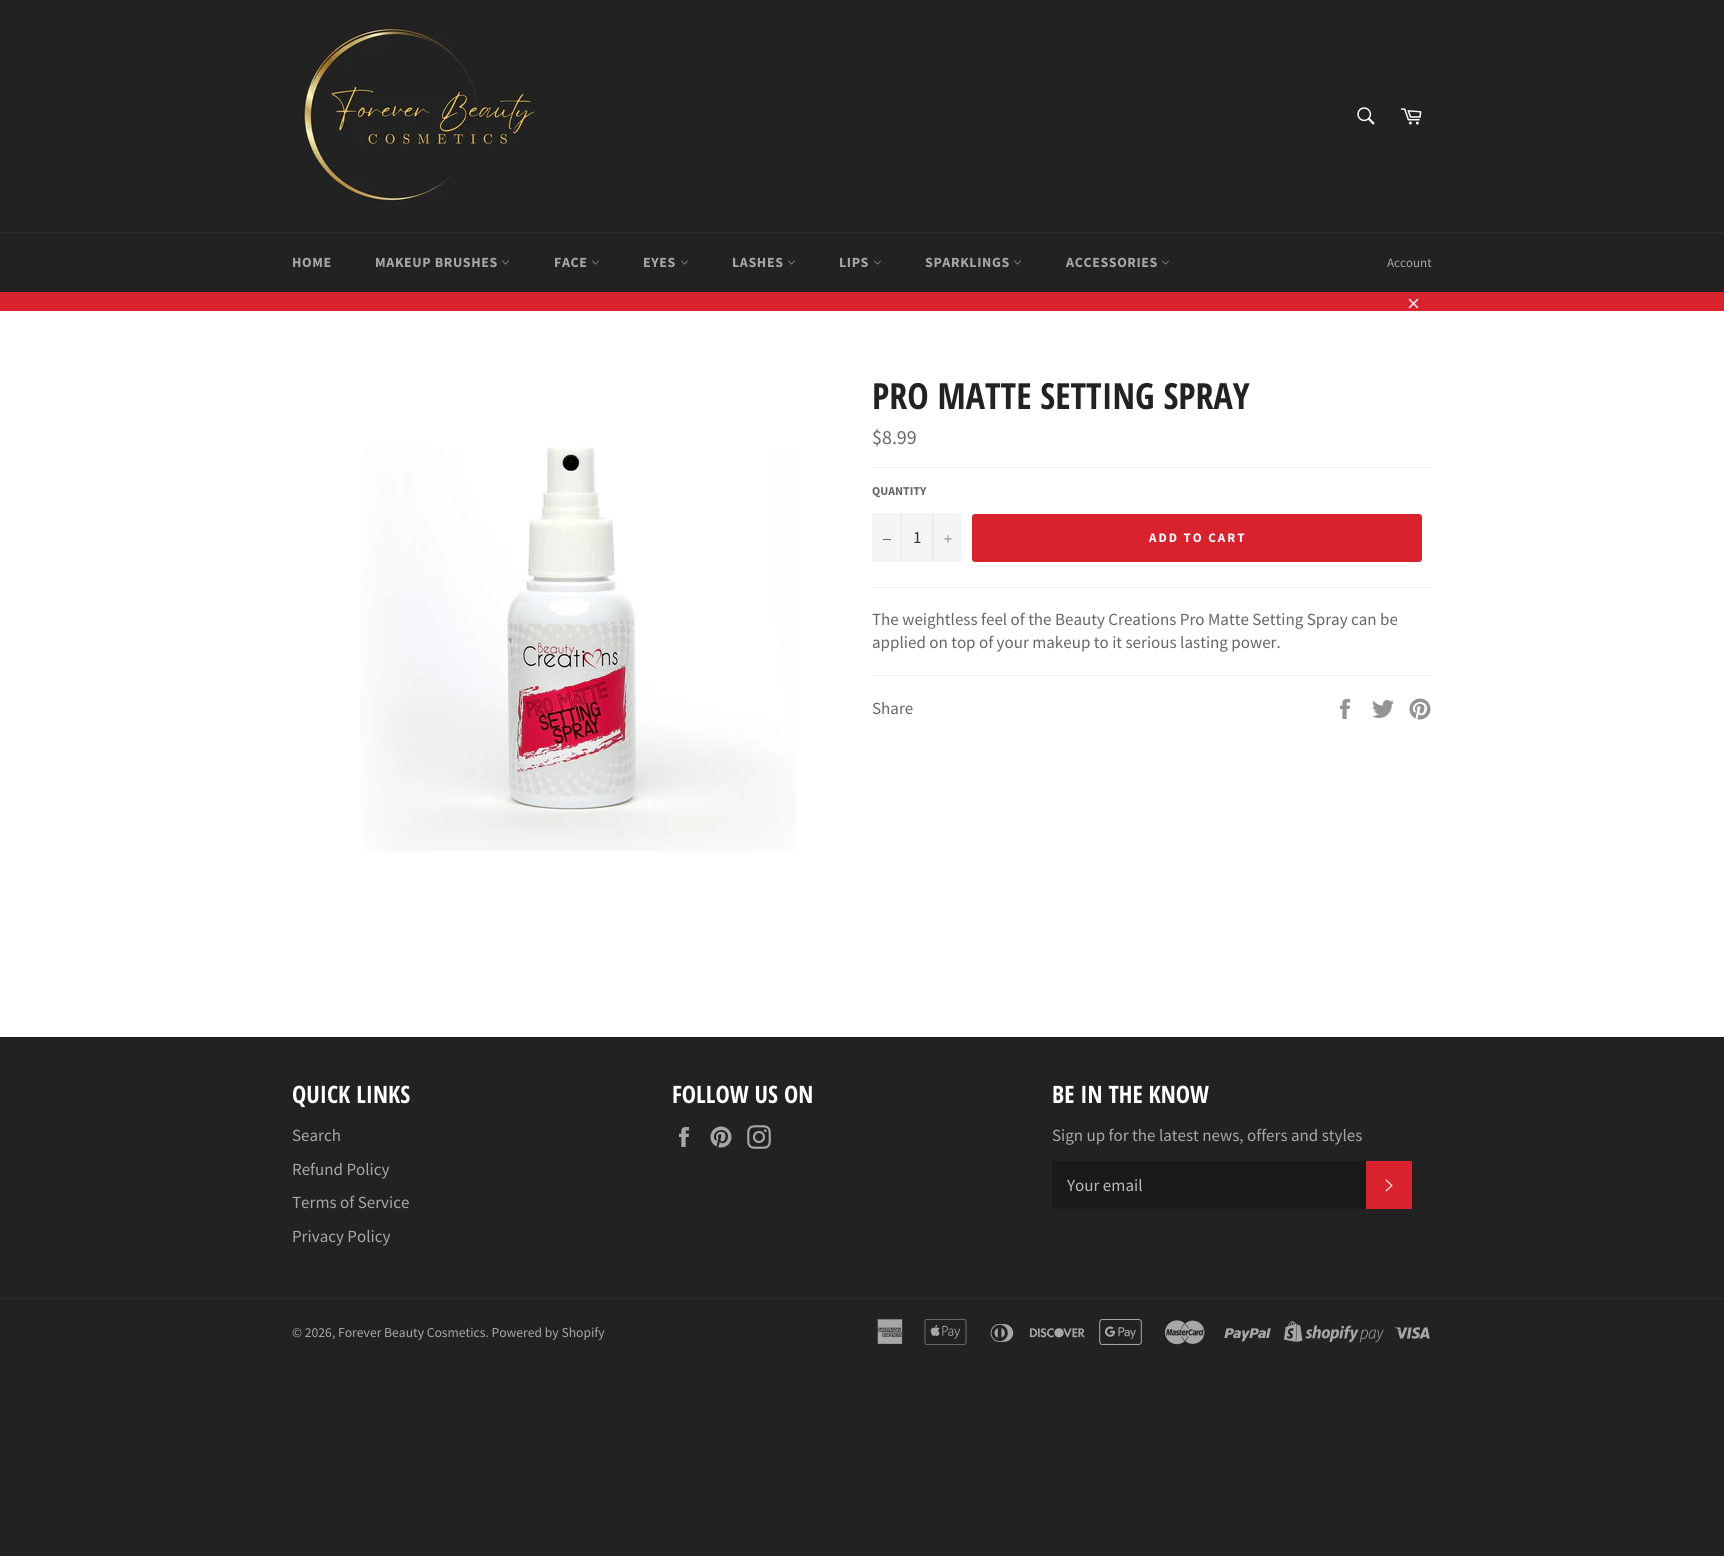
#include <cairo.h>
#include <math.h>
#include <stddef.h>


static void spaced_text(cairo_t *cr, double x, double y, const char *s, double letter, double word) {
    cairo_move_to(cr, x, y);
    while (*s) {
        char ch[5] = {0};
        int n = 0;
        do ch[n++] = *s++; while ((*s & 0xC0) == 0x80);
        cairo_show_text(cr, ch);
        cairo_rel_move_to(cr, letter + word * (*ch == ' '), 0);
    }
}

static void round_rect(cairo_t *cr, double x, double y, double w, double h, double r) {
    cairo_new_sub_path(cr);
    cairo_arc(cr, x + w - r, y + h - r, r, 0, M_PI / 2);
    cairo_arc(cr, x + r, y + h - r, r, M_PI / 2, M_PI);
    cairo_arc(cr, x + r, y + r, r, M_PI, 1.5 * M_PI);
    cairo_arc(cr, x + w - r, y + r, r, 1.5 * M_PI, 2 * M_PI);
    cairo_close_path(cr);
}

static void picture(cairo_t *cr, const char *path, double x, double y, double w, double h) {
    cairo_surface_t *image = cairo_image_surface_create_from_png(path);
    cairo_save(cr);
    cairo_set_source_surface(cr, image, x, y);
    cairo_rectangle(cr, x, y, w, h);
    cairo_fill(cr);
    cairo_restore(cr);
    cairo_surface_destroy(image);
}

int main(void) {
    cairo_surface_t *surface = cairo_image_surface_create(CAIRO_FORMAT_RGB24, 1724, 1556);
    cairo_t *cr = cairo_create(surface);
    cairo_font_options_t *options = cairo_font_options_create();
    cairo_font_options_set_hint_metrics(options, CAIRO_HINT_METRICS_OFF);
    cairo_font_options_set_hint_style(options, CAIRO_HINT_STYLE_NONE);
    cairo_set_font_options(cr, options);
    cairo_set_miter_limit(cr, 4);
    cairo_set_source_rgb(cr, 0.133, 0.133, 0.133);
    cairo_paint(cr);
    picture(cr, "img1.png", 300, 27, 238, 177);
    picture(cr, "img2.png", 1357, 107, 18, 18);
    picture(cr, "img3.png", 1400, 108, 22, 17);
    cairo_set_source_rgb(cr, 0.184, 0.184, 0.184);
    cairo_rectangle(cr, 0, 232, 1724, 1);
    cairo_fill(cr);
    cairo_select_font_face(cr, "Source Sans Pro", CAIRO_FONT_SLANT_NORMAL, CAIRO_FONT_WEIGHT_BOLD);
    cairo_set_font_size(cr, 14);
    cairo_set_source_rgb(cr, 0.655, 0.655, 0.655);
    spaced_text(cr, 292, 267, "HOME", 0.6, 0);
    spaced_text(cr, 375, 267, "MAKEUP BRUSHES", 0.6, 0);
    picture(cr, "img4.png", 502, 260, 7, 5);
    spaced_text(cr, 554, 267, "FACE", 0.6, 0);
    picture(cr, "img4.png", 592, 260, 7, 5);
    spaced_text(cr, 643, 267, "EYES", 0.6, 0);
    picture(cr, "img4.png", 681, 260, 7, 5);
    spaced_text(cr, 732, 267, "LASHES", 0.6, 0);
    picture(cr, "img4.png", 788, 260, 7, 5);
    spaced_text(cr, 839, 267, "LIPS", 0.6, 0);
    picture(cr, "img4.png", 874, 260, 7, 5);
    spaced_text(cr, 925, 267, "SPARKLINGS", 0.6, 0);
    picture(cr, "img4.png", 1014, 260, 7, 5);
    spaced_text(cr, 1066, 267, "ACCESSORIES", 0.6, 0);
    picture(cr, "img4.png", 1162, 260, 7, 5);
    cairo_select_font_face(cr, "Source Sans Pro", CAIRO_FONT_SLANT_NORMAL, CAIRO_FONT_WEIGHT_NORMAL);
    cairo_set_font_size(cr, 13);
    cairo_move_to(cr, 1387, 267);
    cairo_show_text(cr, "Account");
    cairo_set_source_rgb(cr, 0.847, 0.137, 0.184);
    cairo_rectangle(cr, 0, 292, 1724, 19);
    cairo_fill(cr);
    picture(cr, "img5.png", 1408, 298, 11, 11);
    cairo_set_source_rgb(cr, 1, 1, 1);
    cairo_rectangle(cr, 0, 311, 1724, 726);
    cairo_fill(cr);
    picture(cr, "img6.png", 360, 447, 436, 404);
    cairo_select_font_face(cr, "Open Sans Condensed", CAIRO_FONT_SLANT_NORMAL, CAIRO_FONT_WEIGHT_BOLD);
    cairo_set_font_size(cr, 36);
    cairo_set_source_rgb(cr, 0.133, 0.133, 0.133);
    cairo_move_to(cr, 872, 409);
    cairo_show_text(cr, "PRO MATTE SETTING SPRAY");
    cairo_select_font_face(cr, "Source Sans Pro", CAIRO_FONT_SLANT_NORMAL, CAIRO_FONT_WEIGHT_NORMAL);
    cairo_set_font_size(cr, 20);
    cairo_set_source_rgb(cr, 0.4, 0.4, 0.4);
    cairo_move_to(cr, 872, 444);
    cairo_show_text(cr, "$8.99");
    cairo_set_source_rgb(cr, 0.941, 0.941, 0.941);
    cairo_rectangle(cr, 872, 467, 560, 1);
    cairo_fill(cr);
    cairo_select_font_face(cr, "Source Sans Pro", CAIRO_FONT_SLANT_NORMAL, CAIRO_FONT_WEIGHT_BOLD);
    cairo_set_font_size(cr, 12);
    cairo_set_source_rgb(cr, 0.4, 0.4, 0.4);
    cairo_move_to(cr, 872, 495);
    cairo_show_text(cr, "QUANTITY");
    cairo_set_source_rgb(cr, 0.957, 0.957, 0.957);
    cairo_rectangle(cr, 872, 513, 90, 49);
    cairo_fill(cr);
    cairo_set_source_rgb(cr, 0.906, 0.906, 0.906);
    cairo_rectangle(cr, 901, 513, 1, 49);
    cairo_fill(cr);
    cairo_set_source_rgb(cr, 0.4, 0.4, 0.4);
    cairo_rectangle(cr, 883, 539, 8, 1);
    cairo_fill(cr);
    cairo_select_font_face(cr, "Source Sans Pro", CAIRO_FONT_SLANT_NORMAL, CAIRO_FONT_WEIGHT_NORMAL);
    cairo_set_font_size(cr, 17);
    cairo_set_source_rgb(cr, 0.2, 0.2, 0.2);
    cairo_move_to(cr, 913, 543);
    cairo_show_text(cr, "1");
    cairo_set_source_rgb(cr, 0.906, 0.906, 0.906);
    cairo_rectangle(cr, 932, 513, 1, 49);
    cairo_fill(cr);
    picture(cr, "img7.png", 944, 535, 8, 8);
    cairo_set_source_rgb(cr, 0.847, 0.137, 0.184);
    round_rect(cr, 972, 514, 450, 48, 3);
    cairo_fill(cr);
    cairo_select_font_face(cr, "Source Sans Pro", CAIRO_FONT_SLANT_NORMAL, CAIRO_FONT_WEIGHT_BOLD);
    cairo_set_font_size(cr, 13);
    cairo_set_source_rgb(cr, 1, 1, 1);
    spaced_text(cr, 1149, 542, "ADD TO CART", 2, 0);
    cairo_set_source_rgb(cr, 0.941, 0.941, 0.941);
    cairo_rectangle(cr, 872, 587, 560, 1);
    cairo_fill(cr);
    cairo_select_font_face(cr, "Source Sans Pro", CAIRO_FONT_SLANT_NORMAL, CAIRO_FONT_WEIGHT_NORMAL);
    cairo_set_font_size(cr, 17);
    cairo_set_source_rgb(cr, 0.4, 0.4, 0.4);
    cairo_move_to(cr, 872, 625);
    cairo_show_text(cr, "The weightless feel of the Beauty Creations Pro Matte Setting Spray can be");
    cairo_move_to(cr, 872, 648);
    cairo_show_text(cr, "applied on top of your makeup to it serious lasting power.");
    cairo_set_source_rgb(cr, 0.941, 0.941, 0.941);
    cairo_rectangle(cr, 872, 675, 560, 1);
    cairo_fill(cr);
    cairo_set_source_rgb(cr, 0.4, 0.4, 0.4);
    cairo_move_to(cr, 872, 714);
    cairo_show_text(cr, "Share");
    picture(cr, "img8.png", 1340, 699, 10, 20);
    picture(cr, "img9.png", 1372, 700, 22, 18);
    picture(cr, "img10.png", 1409, 698, 22, 22);
    cairo_select_font_face(cr, "Open Sans Condensed", CAIRO_FONT_SLANT_NORMAL, CAIRO_FONT_WEIGHT_BOLD);
    cairo_set_font_size(cr, 24);
    cairo_set_source_rgb(cr, 1, 1, 1);
    cairo_move_to(cr, 292, 1103);
    cairo_show_text(cr, "QUICK LINKS");
    cairo_select_font_face(cr, "Source Sans Pro", CAIRO_FONT_SLANT_NORMAL, CAIRO_FONT_WEIGHT_NORMAL);
    cairo_set_font_size(cr, 17);
    cairo_set_source_rgb(cr, 0.655, 0.655, 0.655);
    cairo_move_to(cr, 292, 1141);
    cairo_show_text(cr, "Search");
    cairo_move_to(cr, 292, 1175);
    cairo_show_text(cr, "Refund Policy");
    cairo_move_to(cr, 292, 1208);
    cairo_show_text(cr, "Terms of Service");
    cairo_move_to(cr, 292, 1242);
    cairo_show_text(cr, "Privacy Policy");
    cairo_select_font_face(cr, "Open Sans Condensed", CAIRO_FONT_SLANT_NORMAL, CAIRO_FONT_WEIGHT_BOLD);
    cairo_set_font_size(cr, 24);
    cairo_set_source_rgb(cr, 1, 1, 1);
    cairo_move_to(cr, 672, 1103);
    cairo_show_text(cr, "FOLLOW US ON");
    picture(cr, "img11.png", 679, 1127, 10, 20);
    picture(cr, "img12.png", 710, 1126, 22, 22);
    picture(cr, "img13.png", 747, 1125, 24, 24);
    cairo_move_to(cr, 1052, 1103);
    cairo_show_text(cr, "BE IN THE KNOW");
    cairo_select_font_face(cr, "Source Sans Pro", CAIRO_FONT_SLANT_NORMAL, CAIRO_FONT_WEIGHT_NORMAL);
    cairo_set_font_size(cr, 17);
    cairo_set_source_rgb(cr, 0.655, 0.655, 0.655);
    cairo_move_to(cr, 1052, 1141);
    cairo_show_text(cr, "Sign up for the latest news, offers and styles");
    cairo_set_source_rgb(cr, 0.102, 0.102, 0.102);
    cairo_rectangle(cr, 1052, 1161, 314, 48);
    cairo_fill(cr);
    cairo_set_source_rgb(cr, 0.729, 0.729, 0.729);
    cairo_move_to(cr, 1067, 1191);
    cairo_show_text(cr, "Your email");
    cairo_set_source_rgb(cr, 0.847, 0.137, 0.184);
    cairo_rectangle(cr, 1366, 1161, 46, 48);
    cairo_fill(cr);
    picture(cr, "img14.png", 1385, 1179, 8, 13);
    cairo_set_source_rgb(cr, 0.184, 0.184, 0.184);
    cairo_rectangle(cr, 0, 1298, 1724, 1);
    cairo_fill(cr);
    cairo_set_font_size(cr, 13.6);
    cairo_set_source_rgb(cr, 0.655, 0.655, 0.655);
    cairo_move_to(cr, 292, 1337);
    cairo_show_text(cr, "© 2026, Forever Beauty Cosmetics. Powered by Shopify");
    picture(cr, "img15.png", 877, 1319, 26, 25);
    picture(cr, "img16.png", 924, 1319, 43, 26);
    picture(cr, "img17.png", 990, 1324, 24, 18);
    picture(cr, "img18.png", 1030, 1328, 55, 10);
    picture(cr, "img19.png", 1099, 1319, 43, 26);
    picture(cr, "img20.png", 1165, 1320, 40, 25);
    picture(cr, "img21.png", 1224, 1328, 47, 14);
    picture(cr, "img22.png", 1284, 1321, 100, 22);
    picture(cr, "img23.png", 1394, 1327, 36, 12);
    cairo_surface_write_to_png(surface, "page.png");
    cairo_font_options_destroy(options);
    cairo_destroy(cr);
    cairo_surface_destroy(surface);
    return 0;
}
